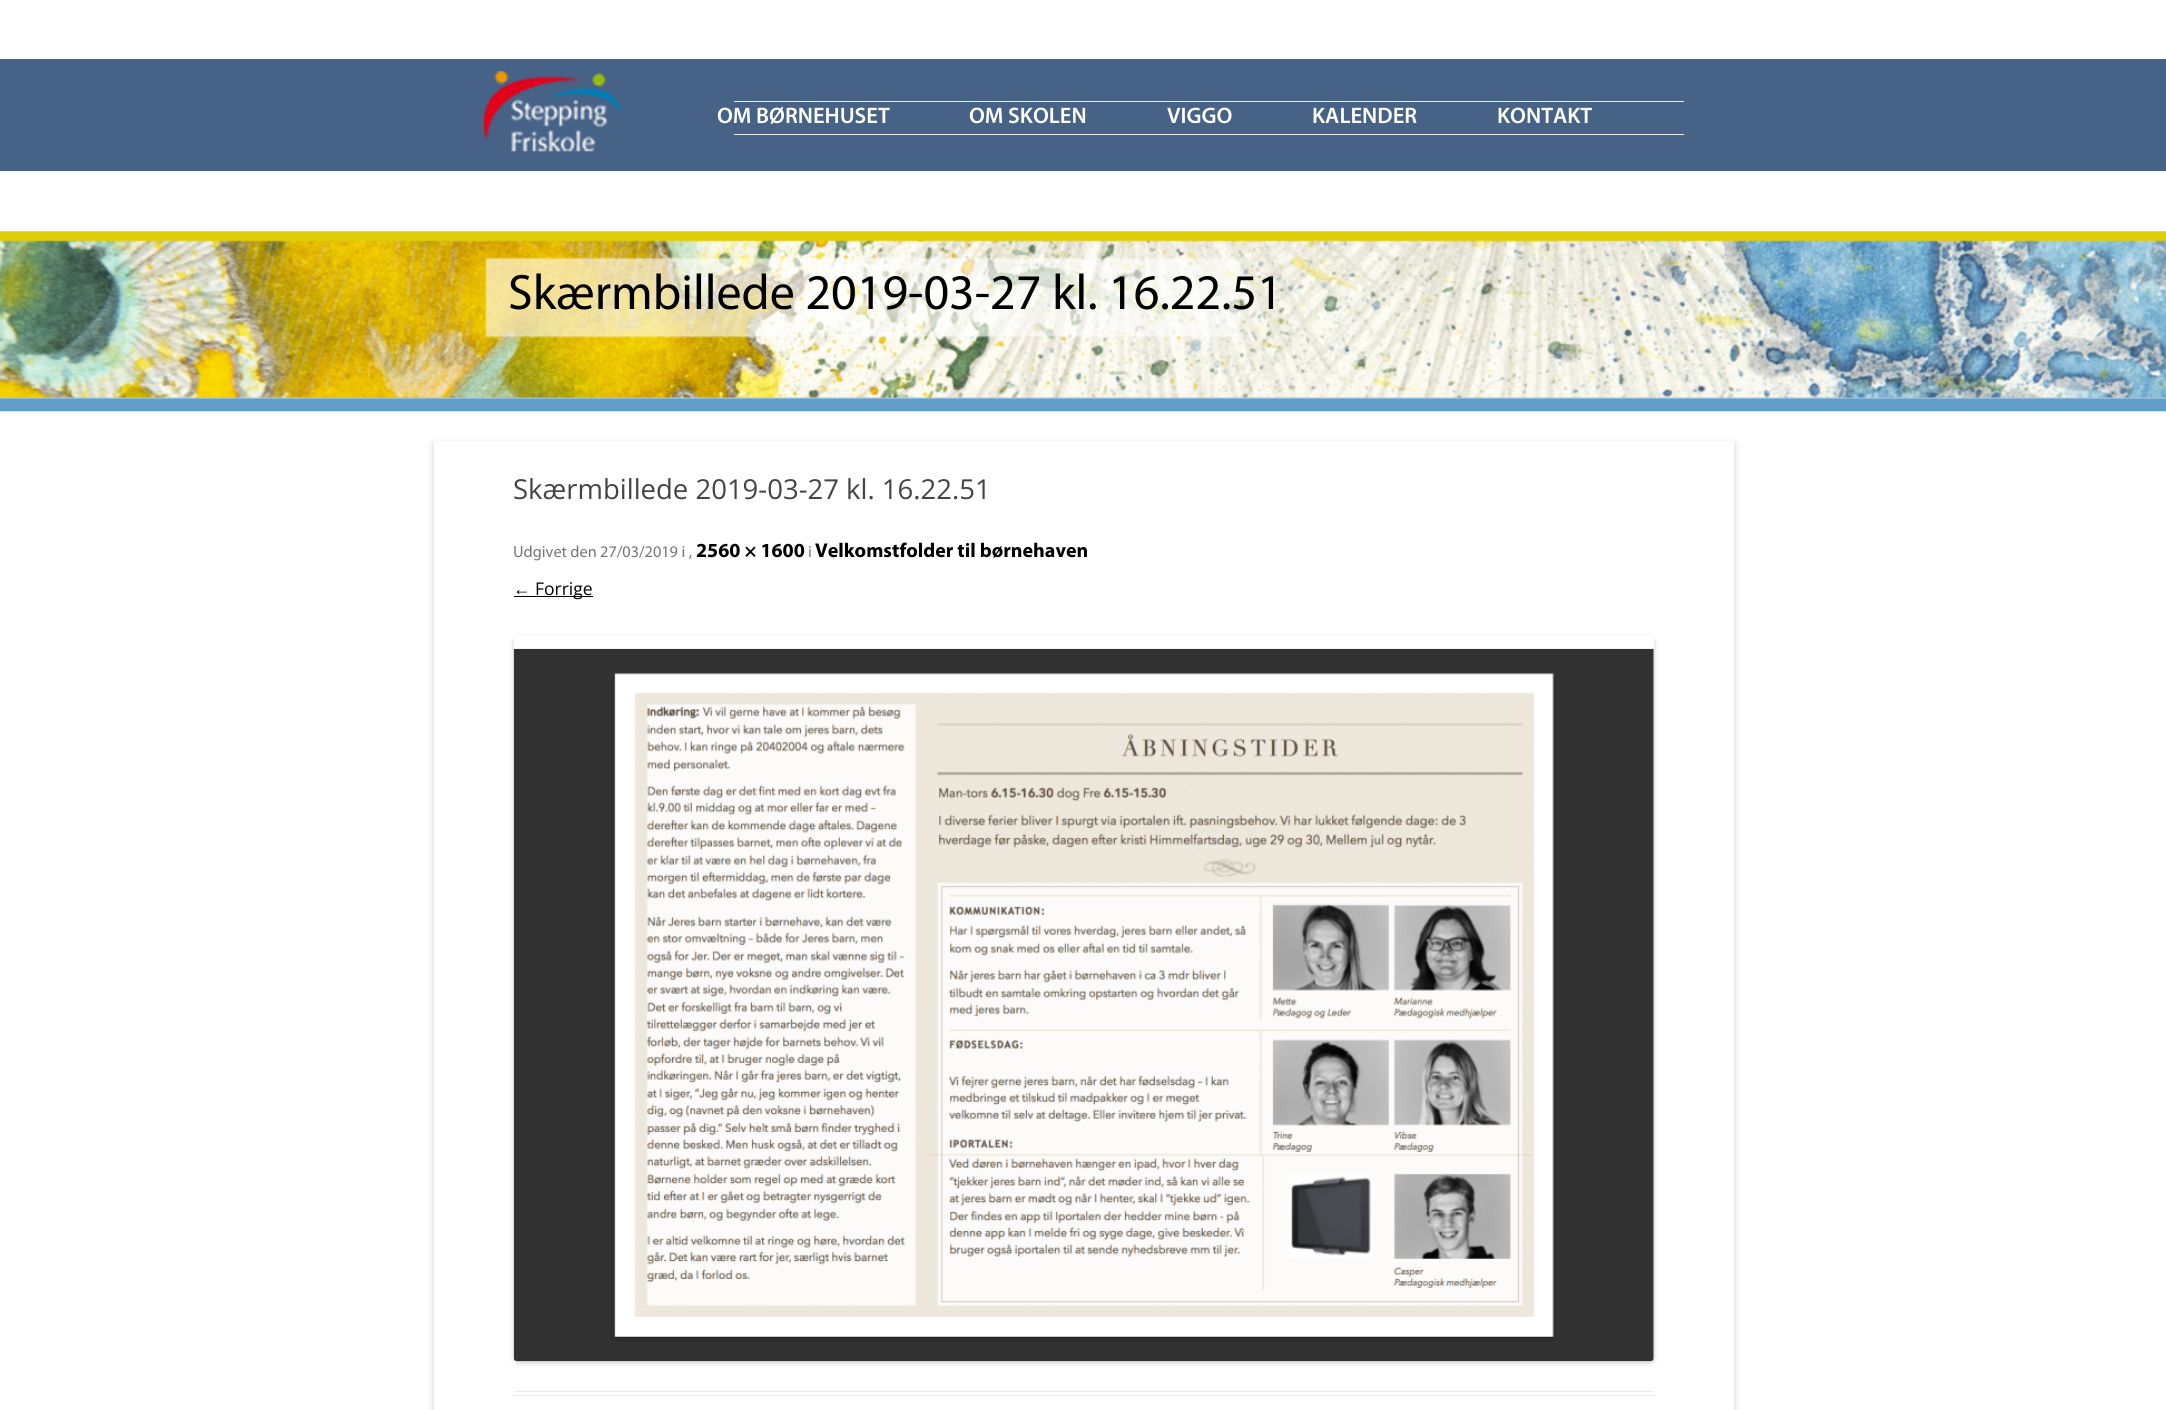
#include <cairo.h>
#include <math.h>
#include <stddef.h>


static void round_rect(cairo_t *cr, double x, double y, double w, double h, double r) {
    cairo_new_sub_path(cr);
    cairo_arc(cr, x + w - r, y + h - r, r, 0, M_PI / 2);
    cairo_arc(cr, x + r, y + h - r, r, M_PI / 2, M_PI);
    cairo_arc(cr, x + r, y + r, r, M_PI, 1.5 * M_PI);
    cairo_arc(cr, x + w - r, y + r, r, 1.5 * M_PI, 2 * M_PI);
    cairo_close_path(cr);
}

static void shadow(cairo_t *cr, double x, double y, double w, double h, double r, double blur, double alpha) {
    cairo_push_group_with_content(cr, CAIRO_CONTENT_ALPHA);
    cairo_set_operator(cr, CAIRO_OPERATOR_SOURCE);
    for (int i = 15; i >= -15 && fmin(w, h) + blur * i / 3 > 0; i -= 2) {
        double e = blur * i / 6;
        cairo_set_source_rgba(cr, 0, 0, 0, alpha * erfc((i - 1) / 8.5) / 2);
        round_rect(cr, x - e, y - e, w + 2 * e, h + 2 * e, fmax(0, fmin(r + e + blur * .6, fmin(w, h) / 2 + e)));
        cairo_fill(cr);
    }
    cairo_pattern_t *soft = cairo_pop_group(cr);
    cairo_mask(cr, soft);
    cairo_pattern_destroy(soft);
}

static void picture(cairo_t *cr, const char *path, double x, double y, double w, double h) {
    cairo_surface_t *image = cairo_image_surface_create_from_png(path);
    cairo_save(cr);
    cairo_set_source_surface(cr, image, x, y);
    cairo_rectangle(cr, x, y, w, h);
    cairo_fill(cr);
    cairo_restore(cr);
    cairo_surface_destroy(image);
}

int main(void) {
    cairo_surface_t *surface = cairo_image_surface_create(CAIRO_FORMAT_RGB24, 2166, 1410);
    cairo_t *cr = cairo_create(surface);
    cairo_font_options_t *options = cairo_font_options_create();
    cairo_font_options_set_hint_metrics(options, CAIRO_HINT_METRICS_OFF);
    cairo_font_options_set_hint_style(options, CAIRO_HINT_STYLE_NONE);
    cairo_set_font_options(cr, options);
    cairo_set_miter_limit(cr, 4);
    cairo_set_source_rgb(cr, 1, 1, 1);
    cairo_paint(cr);
    cairo_set_source_rgb(cr, 0.275, 0.384, 0.525);
    cairo_rectangle(cr, 0, 59, 2166, 112);
    cairo_fill(cr);
    picture(cr, "img1.png", 483, 71, 140, 81);
    cairo_set_source_rgb(cr, 0.929, 0.929, 0.929);
    cairo_rectangle(cr, 734, 101, 950, 1);
    cairo_fill(cr);
    cairo_rectangle(cr, 734, 134, 950, 1);
    cairo_fill(cr);
    cairo_select_font_face(cr, "Myriad SemiBold", CAIRO_FONT_SLANT_NORMAL, CAIRO_FONT_WEIGHT_NORMAL);
    cairo_set_font_size(cr, 22.5);
    cairo_set_source_rgb(cr, 1, 1, 1);
    cairo_move_to(cr, 717, 123);
    cairo_show_text(cr, "OM BØRNEHUSET");
    cairo_move_to(cr, 969, 123);
    cairo_show_text(cr, "OM SKOLEN");
    cairo_move_to(cr, 1167, 123);
    cairo_show_text(cr, "VIGGO");
    cairo_move_to(cr, 1312, 123);
    cairo_show_text(cr, "KALENDER");
    cairo_move_to(cr, 1497, 123);
    cairo_show_text(cr, "KONTAKT");
    picture(cr, "img2.png", 0, 231, 2166, 181);
    picture(cr, "img3.png", 485, 257, 756, 81);
    cairo_select_font_face(cr, "Myriad", CAIRO_FONT_SLANT_NORMAL, CAIRO_FONT_WEIGHT_NORMAL);
    cairo_set_font_size(cr, 50);
    cairo_set_source_rgb(cr, 0, 0, 0);
    cairo_move_to(cr, 508, 309);
    cairo_show_text(cr, "Skærmbillede 2019-03-27 kl. 16.22.51");
    cairo_set_source_rgb(cr, 0.392, 0.392, 0.392);
    shadow(cr, 434, 444, 1300, 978, 0, 4, 0.3);
    cairo_set_source_rgb(cr, 1, 1, 1);
    cairo_rectangle(cr, 434, 441, 1300, 969);
    cairo_fill(cr);
    cairo_set_source_rgb(cr, 0.929, 0.929, 0.929);
    cairo_rectangle(cr, 514, 1391, 1140, 1);
    cairo_fill(cr);
    cairo_rectangle(cr, 514, 1395, 1140, 1);
    cairo_fill(cr);
    cairo_select_font_face(cr, "Open Sans", CAIRO_FONT_SLANT_NORMAL, CAIRO_FONT_WEIGHT_NORMAL);
    cairo_set_font_size(cr, 27.5);
    cairo_set_source_rgb(cr, 0.267, 0.267, 0.267);
    cairo_move_to(cr, 513, 499);
    cairo_show_text(cr, "Skærmbillede 2019-03-27 kl. 16.22.51");
    cairo_select_font_face(cr, "Myriad", CAIRO_FONT_SLANT_NORMAL, CAIRO_FONT_WEIGHT_NORMAL);
    cairo_set_font_size(cr, 16.25);
    cairo_set_source_rgb(cr, 0.459, 0.459, 0.459);
    cairo_move_to(cr, 513, 557);
    cairo_show_text(cr, "Udgivet den 27/03/2019 i ,");
    cairo_select_font_face(cr, "Myriad", CAIRO_FONT_SLANT_NORMAL, CAIRO_FONT_WEIGHT_BOLD);
    cairo_set_font_size(cr, 20);
    cairo_set_source_rgb(cr, 0, 0, 0);
    cairo_move_to(cr, 696, 557);
    cairo_show_text(cr, "2560 × 1600");
    cairo_select_font_face(cr, "Myriad", CAIRO_FONT_SLANT_NORMAL, CAIRO_FONT_WEIGHT_NORMAL);
    cairo_set_font_size(cr, 16.25);
    cairo_set_source_rgb(cr, 0.459, 0.459, 0.459);
    cairo_move_to(cr, 808, 557);
    cairo_show_text(cr, "i");
    cairo_select_font_face(cr, "Myriad", CAIRO_FONT_SLANT_NORMAL, CAIRO_FONT_WEIGHT_BOLD);
    cairo_set_font_size(cr, 20);
    cairo_set_source_rgb(cr, 0, 0, 0);
    cairo_move_to(cr, 815, 557);
    cairo_show_text(cr, "Velkomstfolder til børnehaven");
    cairo_select_font_face(cr, "Liberation Sans", CAIRO_FONT_SLANT_NORMAL, CAIRO_FONT_WEIGHT_NORMAL);
    cairo_set_font_size(cr, 17.5);
    cairo_move_to(cr, 513, 595);
    cairo_show_text(cr, "←");
    cairo_rectangle(cr, 514, 596, 79, 1);
    cairo_fill(cr);
    cairo_select_font_face(cr, "Open Sans", CAIRO_FONT_SLANT_NORMAL, CAIRO_FONT_WEIGHT_NORMAL);
    cairo_move_to(cr, 535, 595);
    cairo_show_text(cr, "Forrige");
    cairo_save(cr);
    cairo_set_fill_rule(cr, CAIRO_FILL_RULE_EVEN_ODD);
    cairo_new_path(cr);
    cairo_move_to(cr, 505, 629);
    cairo_line_to(cr, 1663, 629);
    cairo_line_to(cr, 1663, 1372);
    cairo_line_to(cr, 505, 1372);
    cairo_close_path(cr);
    cairo_move_to(cr, 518, 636);
    cairo_line_to(cr, 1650, 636);
    cairo_curve_to(cr, 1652, 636, 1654, 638, 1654, 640);
    cairo_line_to(cr, 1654, 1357);
    cairo_curve_to(cr, 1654, 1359, 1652, 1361, 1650, 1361);
    cairo_line_to(cr, 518, 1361);
    cairo_curve_to(cr, 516, 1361, 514, 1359, 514, 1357);
    cairo_line_to(cr, 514, 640);
    cairo_curve_to(cr, 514, 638, 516, 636, 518, 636);
    cairo_close_path(cr);
    cairo_clip(cr);
    cairo_set_source_rgb(cr, 0, 0, 0);
    shadow(cr, 514, 638, 1140, 725, 4, 2.5, 0.2);
    cairo_restore(cr);
    picture(cr, "img4.png", 513, 648, 1141, 714);
    cairo_surface_write_to_png(surface, "page.png");
    cairo_font_options_destroy(options);
    cairo_destroy(cr);
    cairo_surface_destroy(surface);
    return 0;
}
